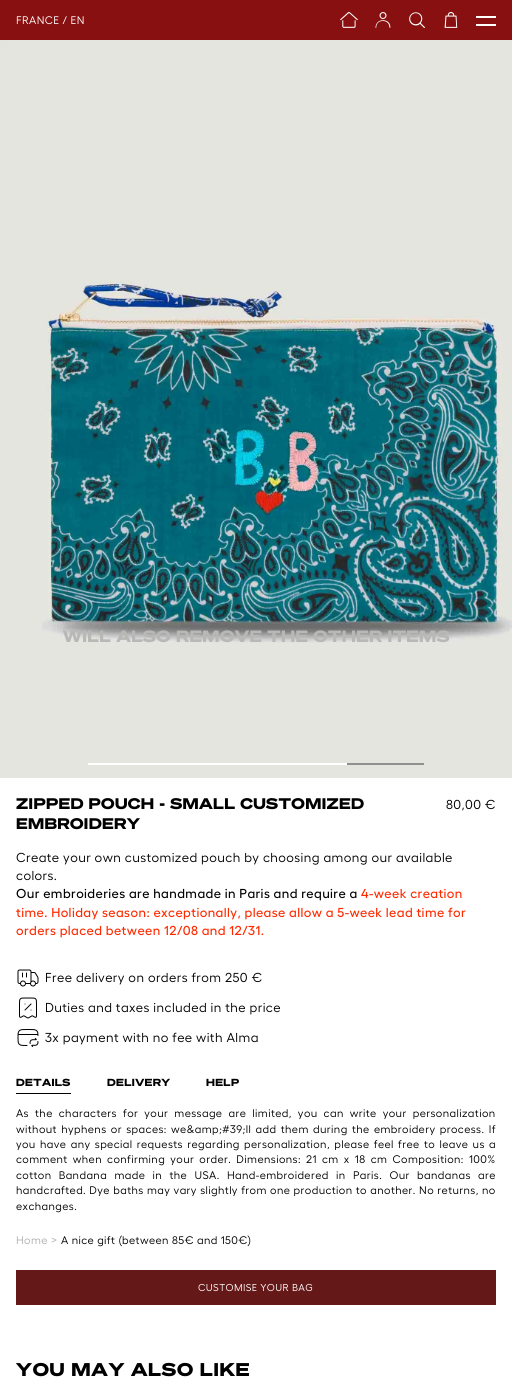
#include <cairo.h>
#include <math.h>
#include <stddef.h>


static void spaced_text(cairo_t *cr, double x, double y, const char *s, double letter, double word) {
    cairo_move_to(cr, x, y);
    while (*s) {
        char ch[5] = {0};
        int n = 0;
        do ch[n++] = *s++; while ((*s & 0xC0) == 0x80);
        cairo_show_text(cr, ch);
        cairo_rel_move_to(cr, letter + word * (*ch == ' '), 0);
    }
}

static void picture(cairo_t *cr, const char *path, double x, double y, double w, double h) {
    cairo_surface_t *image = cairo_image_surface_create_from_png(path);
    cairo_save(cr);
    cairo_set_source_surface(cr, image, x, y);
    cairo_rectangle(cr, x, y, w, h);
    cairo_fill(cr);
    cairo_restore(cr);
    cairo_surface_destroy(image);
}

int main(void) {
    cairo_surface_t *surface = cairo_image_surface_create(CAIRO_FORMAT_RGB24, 512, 1381);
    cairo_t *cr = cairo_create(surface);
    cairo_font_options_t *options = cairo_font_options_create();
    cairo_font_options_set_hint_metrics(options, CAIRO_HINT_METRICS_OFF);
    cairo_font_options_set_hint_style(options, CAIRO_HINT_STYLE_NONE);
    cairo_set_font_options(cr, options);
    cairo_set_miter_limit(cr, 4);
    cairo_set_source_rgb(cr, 1, 1, 1);
    cairo_paint(cr);
    cairo_set_source_rgb(cr, 0.533, 0.063, 0.063);
    cairo_rectangle(cr, 0, 0, 512, 40);
    cairo_fill(cr);
    cairo_select_font_face(cr, "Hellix", CAIRO_FONT_SLANT_NORMAL, CAIRO_FONT_WEIGHT_NORMAL);
    cairo_set_font_size(cr, 11);
    cairo_set_source_rgb(cr, 1, 1, 1);
    spaced_text(cr, 16, 24, "FRANCE / EN", 0.4, 0);
    picture(cr, "img1.png", 340, 12, 18, 16);
    picture(cr, "img2.png", 375, 12, 16, 16);
    picture(cr, "img3.png", 409, 12, 16, 16);
    picture(cr, "img4.png", 444, 12, 14, 16);
    cairo_rectangle(cr, 476, 16, 20, 2);
    cairo_fill(cr);
    cairo_rectangle(cr, 476, 24, 20, 2);
    cairo_fill(cr);
    picture(cr, "img5.png", 0, 40, 512, 738);
    cairo_select_font_face(cr, "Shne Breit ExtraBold", CAIRO_FONT_SLANT_NORMAL, CAIRO_FONT_WEIGHT_NORMAL);
    cairo_set_font_size(cr, 16);
    cairo_set_source_rgb(cr, 0.722, 0.722, 0.718);
    spaced_text(cr, 63, 642, "WILL ALSO REMOVE THE OTHER ITEMS", 0.4, 0);
    cairo_set_source_rgb(cr, 1, 1, 1);
    cairo_rectangle(cr, 88, 763, 259, 2);
    cairo_fill(cr);
    cairo_set_source_rgb(cr, 0.561, 0.561, 0.561);
    cairo_rectangle(cr, 347, 763, 77, 2);
    cairo_fill(cr);
    cairo_set_font_size(cr, 15);
    cairo_set_source_rgb(cr, 0, 0, 0);
    spaced_text(cr, 16, 809, "ZIPPED POUCH - SMALL CUSTOMIZED", 0.4, 0);
    spaced_text(cr, 16, 829, "EMBROIDERY", 0.4, 0);
    cairo_select_font_face(cr, "Hellix", CAIRO_FONT_SLANT_NORMAL, CAIRO_FONT_WEIGHT_NORMAL);
    cairo_set_font_size(cr, 13);
    spaced_text(cr, 446, 809, "80,00 €", 0.4, 0);
    spaced_text(cr, 16, 862, "Create your own customized pouch by choosing among our available", 0.4, 0);
    spaced_text(cr, 16, 880, "colors.", 0.4, 0);
    cairo_select_font_face(cr, "Hellix Medium", CAIRO_FONT_SLANT_NORMAL, CAIRO_FONT_WEIGHT_NORMAL);
    spaced_text(cr, 16, 898, "Our embroideries are handmade in Paris and require a", 0.4, 0);
    cairo_set_source_rgb(cr, 1, 0.165, 0);
    spaced_text(cr, 361, 898, "4-week creation", 0.4, 0);
    spaced_text(cr, 16, 917, "time. Holiday season: exceptionally, please allow a 5-week lead time for", 0.4, 0);
    spaced_text(cr, 16, 935, "orders placed between 12/08 and 12/31.", 0.4, 0);
    picture(cr, "img6.png", 17, 969, 22, 18);
    cairo_select_font_face(cr, "Hellix", CAIRO_FONT_SLANT_NORMAL, CAIRO_FONT_WEIGHT_NORMAL);
    cairo_set_source_rgb(cr, 0, 0, 0);
    spaced_text(cr, 45, 982, "Free delivery on orders from 250 €", 0.4, 0);
    picture(cr, "img7.png", 19, 997, 18, 22);
    spaced_text(cr, 45, 1012, "Duties and taxes included in the price", 0.4, 0);
    picture(cr, "img8.png", 17, 1029, 22, 18);
    spaced_text(cr, 45, 1042, "3x payment with no fee with Alma", 0.4, 0);
    cairo_rectangle(cr, 16, 1093, 55, 1);
    cairo_fill(cr);
    cairo_select_font_face(cr, "Shne Breit ExtraBold", CAIRO_FONT_SLANT_NORMAL, CAIRO_FONT_WEIGHT_NORMAL);
    cairo_set_font_size(cr, 10);
    spaced_text(cr, 16, 1086, "DETAILS", 0.4, 0);
    spaced_text(cr, 107, 1086, "DELIVERY", 0.4, 0);
    spaced_text(cr, 206, 1086, "HELP", 0.4, 0);
    cairo_select_font_face(cr, "Hellix", CAIRO_FONT_SLANT_NORMAL, CAIRO_FONT_WEIGHT_NORMAL);
    cairo_set_font_size(cr, 11);
    spaced_text(cr, 16, 1117, "As the characters for your message are limited, you can write your personalization", 0.4, 3);
    spaced_text(cr, 16, 1133, "without hyphens or spaces: we&amp;#39;ll add them during the embroidery process. If", 0.4, 1.25);
    spaced_text(cr, 16, 1148, "you have any special requests regarding personalization, please feel free to leave us a", 0.4, 1.25);
    spaced_text(cr, 16, 1163, "comment when confirming your order. Dimensions: 21 cm x 18 cm Composition: 100%", 0.4, 2.1);
    spaced_text(cr, 16, 1179, "cotton Bandana made in the USA. Hand-embroidered in Paris. Our bandanas are", 0.4, 4.25);
    spaced_text(cr, 16, 1194, "handcrafted. Dye baths may vary slightly from one production to another. No returns, no", 0.4, 0.25);
    spaced_text(cr, 16, 1210, "exchanges.", 0.4, 0);
    cairo_set_source_rgb(cr, 0.678, 0.678, 0.678);
    spaced_text(cr, 16, 1244, "Home >", 0.4, 0);
    cairo_set_source_rgb(cr, 0, 0, 0);
    spaced_text(cr, 61, 1244, "A nice gift (between 85€ and 150€)", 0.4, 0);
    cairo_set_source_rgb(cr, 0.396, 0.094, 0.094);
    cairo_rectangle(cr, 16, 1270, 480, 35);
    cairo_fill(cr);
    cairo_set_font_size(cr, 10);
    cairo_set_source_rgb(cr, 1, 1, 1);
    spaced_text(cr, 198, 1291, "CUSTOMISE YOUR BAG", 0.4, 0);
    cairo_select_font_face(cr, "Shne Breit ExtraBold", CAIRO_FONT_SLANT_NORMAL, CAIRO_FONT_WEIGHT_NORMAL);
    cairo_set_font_size(cr, 18);
    cairo_set_source_rgb(cr, 0, 0, 0);
    spaced_text(cr, 16, 1376, "YOU MAY ALSO LIKE", 0.75, 0);
    cairo_surface_write_to_png(surface, "page.png");
    cairo_font_options_destroy(options);
    cairo_destroy(cr);
    cairo_surface_destroy(surface);
    return 0;
}
